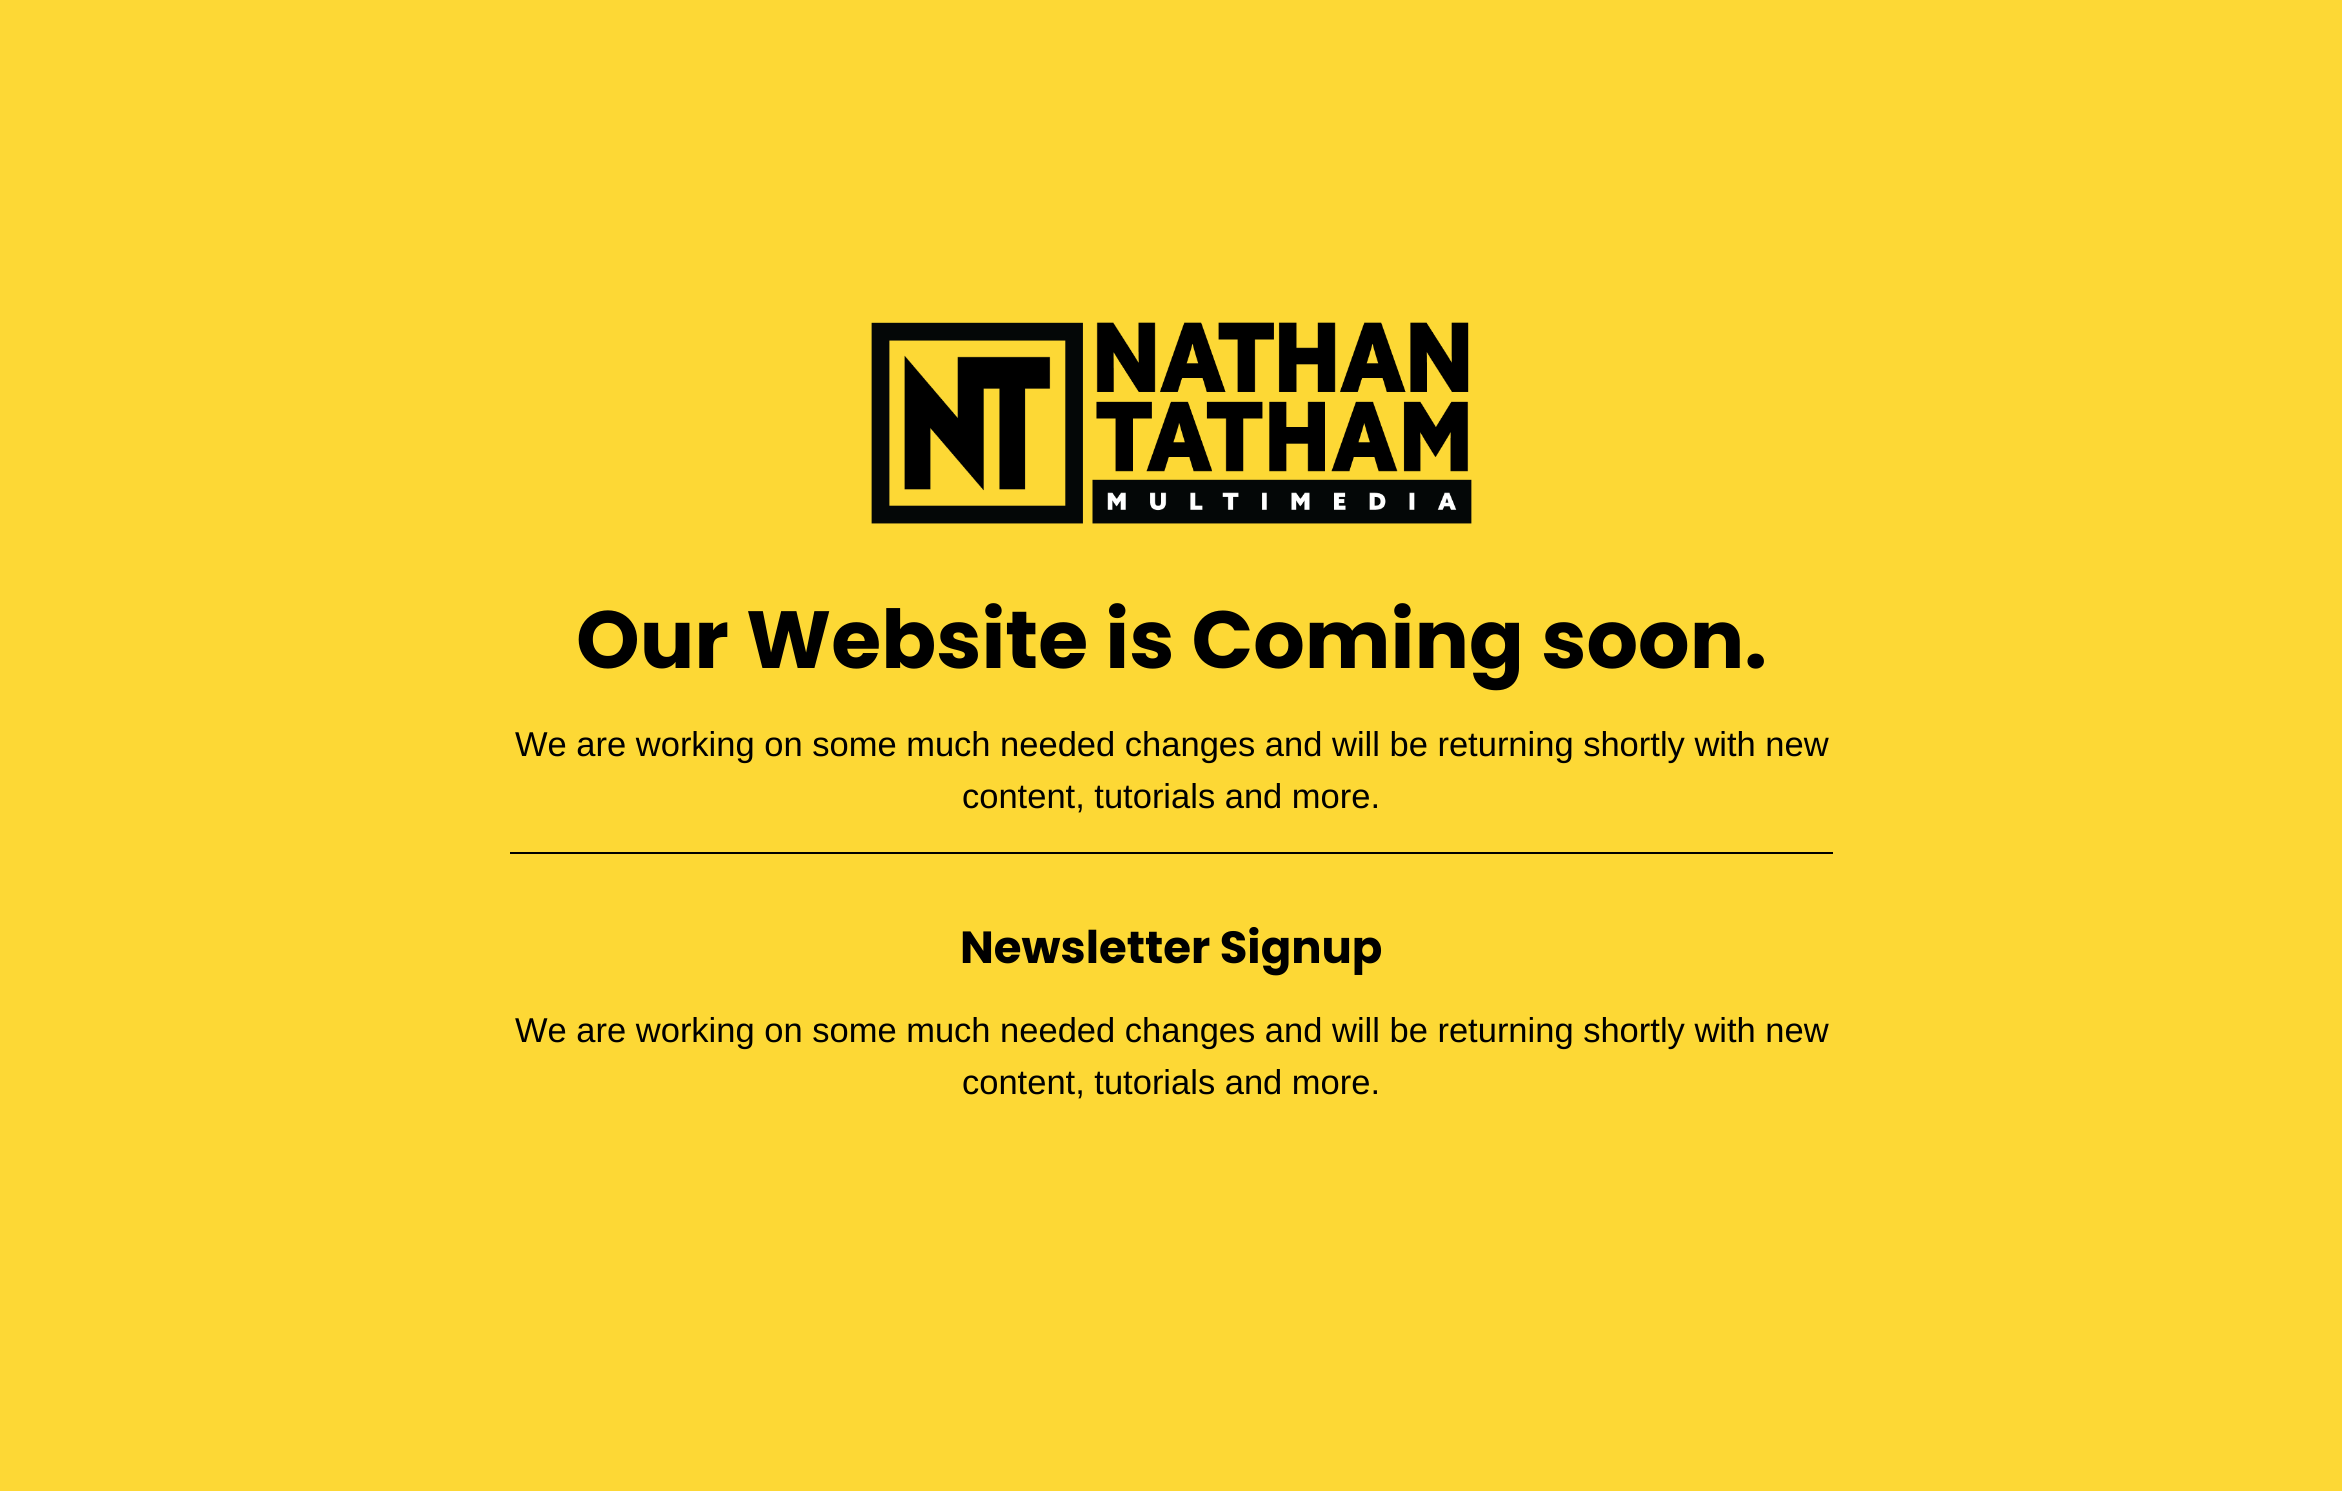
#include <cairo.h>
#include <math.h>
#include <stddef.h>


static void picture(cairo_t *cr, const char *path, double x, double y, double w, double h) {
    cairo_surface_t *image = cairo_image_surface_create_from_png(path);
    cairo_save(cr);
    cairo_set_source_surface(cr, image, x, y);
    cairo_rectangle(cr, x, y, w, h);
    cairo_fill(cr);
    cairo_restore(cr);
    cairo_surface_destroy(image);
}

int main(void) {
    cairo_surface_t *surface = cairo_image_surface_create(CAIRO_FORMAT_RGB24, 2342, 1491);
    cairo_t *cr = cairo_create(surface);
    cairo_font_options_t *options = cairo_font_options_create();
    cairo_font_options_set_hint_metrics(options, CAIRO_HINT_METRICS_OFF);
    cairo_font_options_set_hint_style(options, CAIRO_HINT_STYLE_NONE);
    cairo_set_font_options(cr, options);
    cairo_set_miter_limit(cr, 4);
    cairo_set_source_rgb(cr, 0.992, 0.847, 0.208);
    cairo_paint(cr);
    picture(cr, "img1.png", 871, 322, 601, 202);
    cairo_select_font_face(cr, "Poppins", CAIRO_FONT_SLANT_NORMAL, CAIRO_FONT_WEIGHT_BOLD);
    cairo_set_font_size(cr, 81);
    cairo_set_source_rgb(cr, 0, 0, 0);
    cairo_move_to(cr, 576, 668);
    cairo_show_text(cr, "Our Website is Coming soon.");
    cairo_select_font_face(cr, "Liberation Sans", CAIRO_FONT_SLANT_NORMAL, CAIRO_FONT_WEIGHT_NORMAL);
    cairo_set_font_size(cr, 34.5);
    cairo_move_to(cr, 515, 756);
    cairo_show_text(cr, "We are working on some much needed changes and will be returning shortly with new");
    cairo_move_to(cr, 962, 808);
    cairo_show_text(cr, "content, tutorials and more.");
    cairo_rectangle(cr, 510, 852, 1323, 2);
    cairo_fill(cr);
    cairo_select_font_face(cr, "Poppins", CAIRO_FONT_SLANT_NORMAL, CAIRO_FONT_WEIGHT_BOLD);
    cairo_set_font_size(cr, 45);
    cairo_move_to(cr, 960, 963);
    cairo_show_text(cr, "Newsletter Signup");
    cairo_select_font_face(cr, "Liberation Sans", CAIRO_FONT_SLANT_NORMAL, CAIRO_FONT_WEIGHT_NORMAL);
    cairo_set_font_size(cr, 34.5);
    cairo_move_to(cr, 515, 1042);
    cairo_show_text(cr, "We are working on some much needed changes and will be returning shortly with new");
    cairo_move_to(cr, 962, 1094);
    cairo_show_text(cr, "content, tutorials and more.");
    cairo_surface_write_to_png(surface, "page.png");
    cairo_font_options_destroy(options);
    cairo_destroy(cr);
    cairo_surface_destroy(surface);
    return 0;
}
